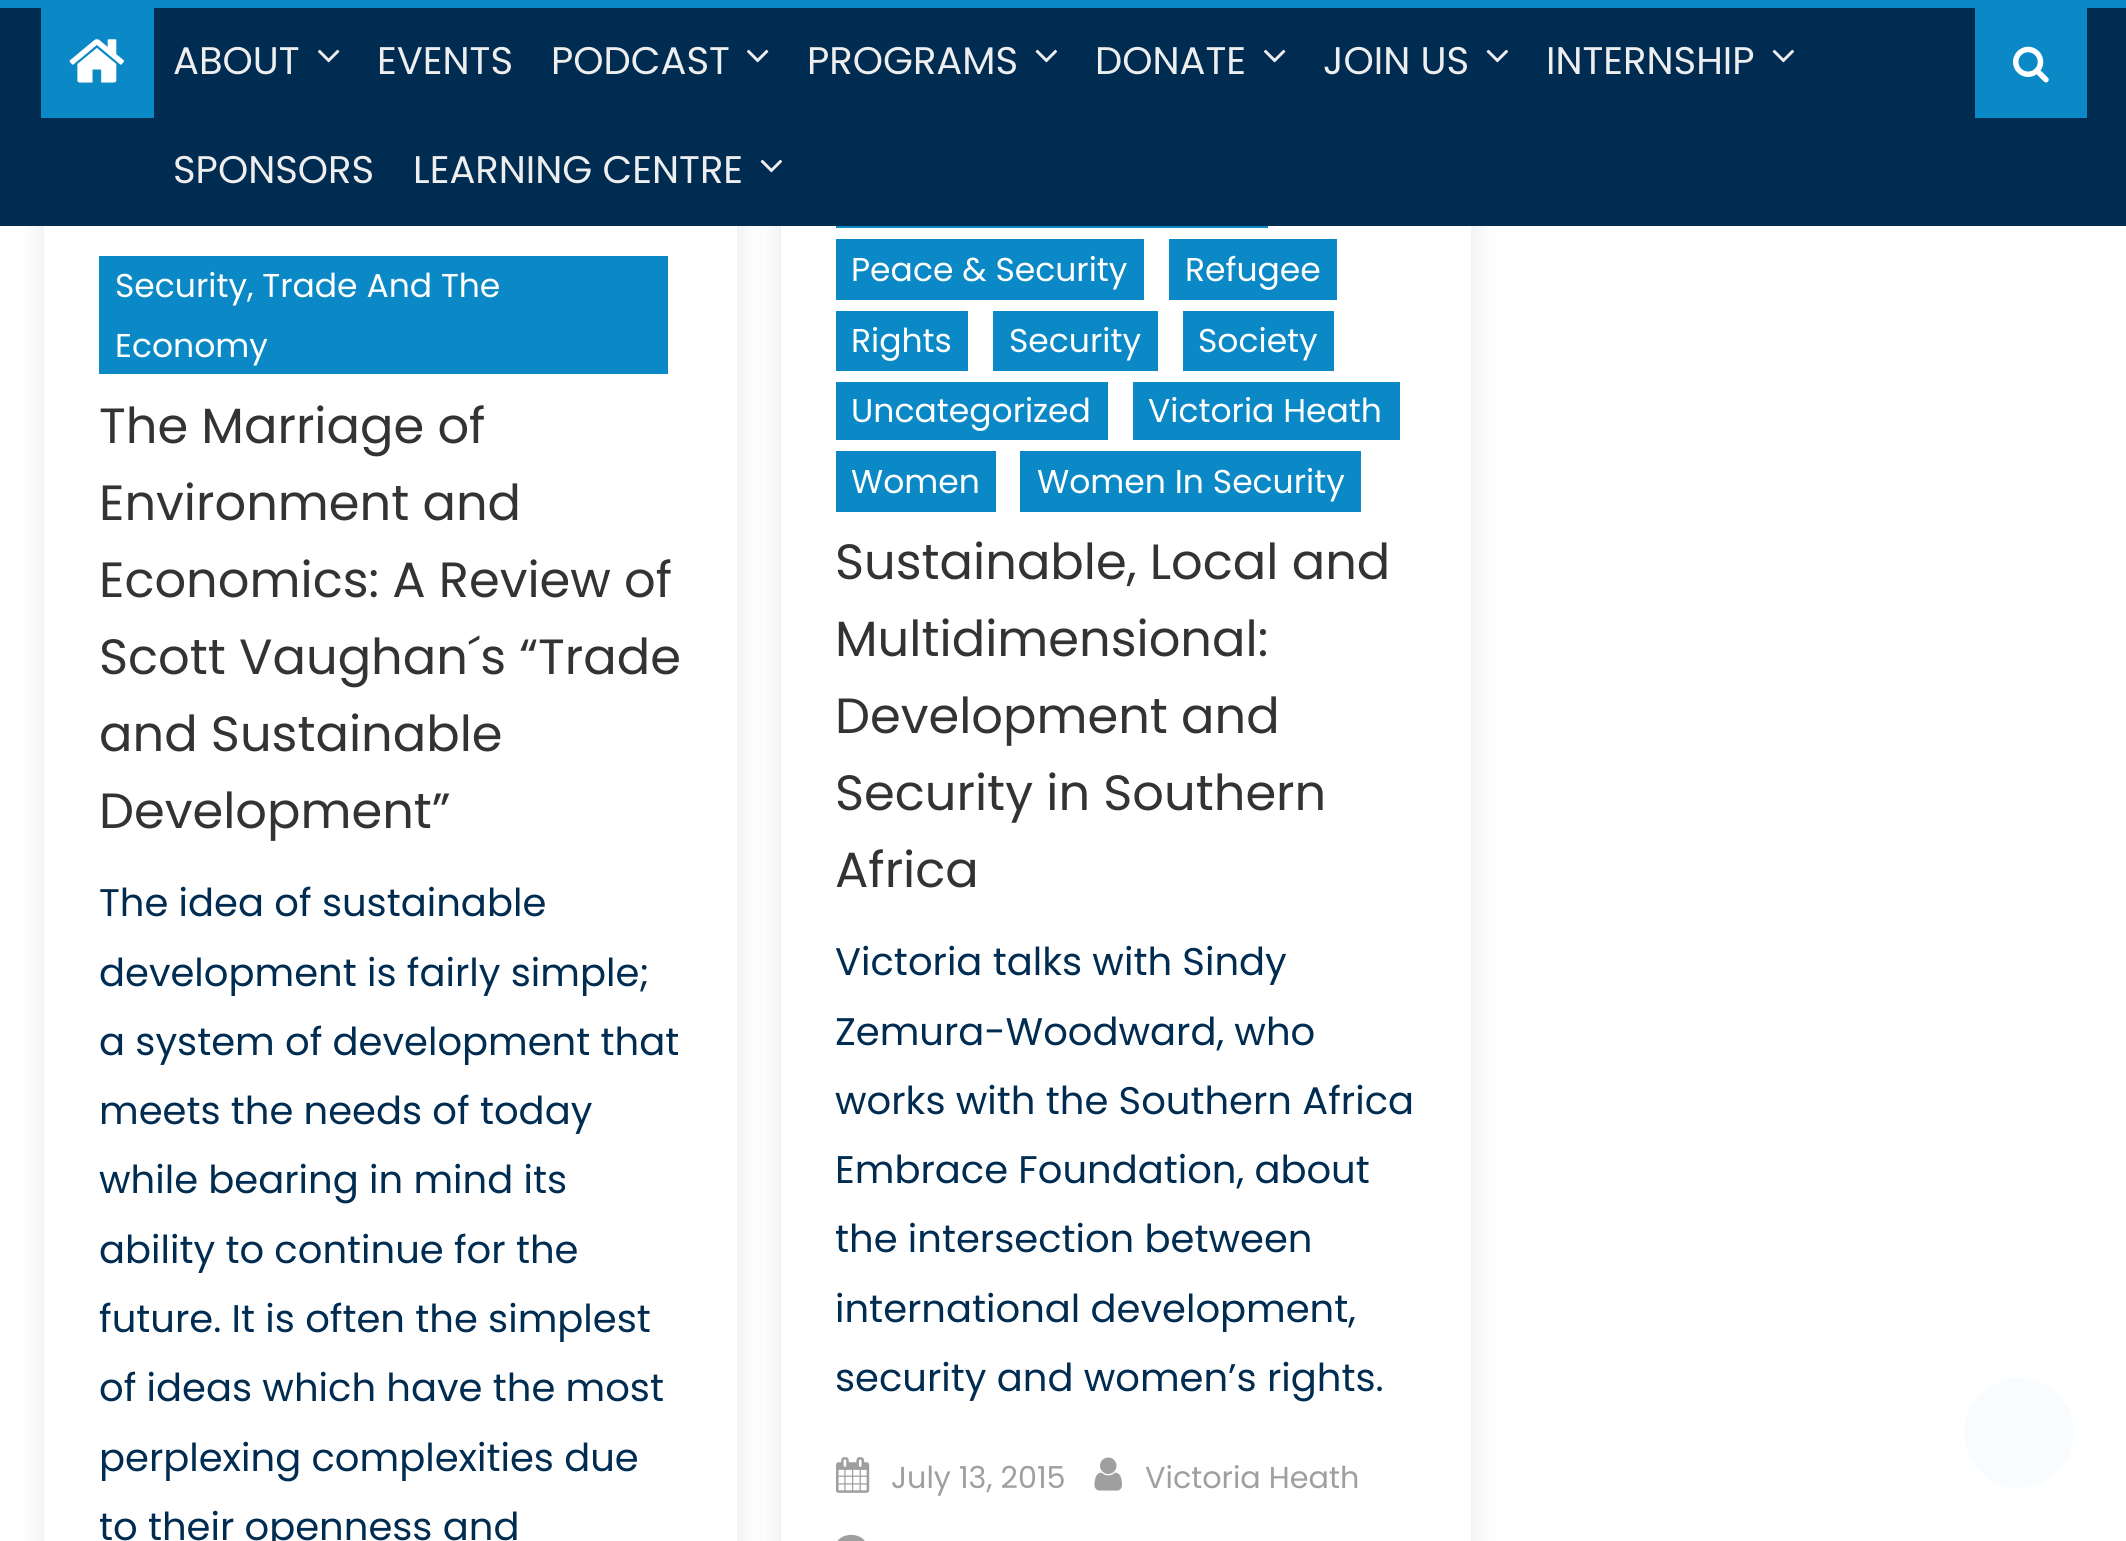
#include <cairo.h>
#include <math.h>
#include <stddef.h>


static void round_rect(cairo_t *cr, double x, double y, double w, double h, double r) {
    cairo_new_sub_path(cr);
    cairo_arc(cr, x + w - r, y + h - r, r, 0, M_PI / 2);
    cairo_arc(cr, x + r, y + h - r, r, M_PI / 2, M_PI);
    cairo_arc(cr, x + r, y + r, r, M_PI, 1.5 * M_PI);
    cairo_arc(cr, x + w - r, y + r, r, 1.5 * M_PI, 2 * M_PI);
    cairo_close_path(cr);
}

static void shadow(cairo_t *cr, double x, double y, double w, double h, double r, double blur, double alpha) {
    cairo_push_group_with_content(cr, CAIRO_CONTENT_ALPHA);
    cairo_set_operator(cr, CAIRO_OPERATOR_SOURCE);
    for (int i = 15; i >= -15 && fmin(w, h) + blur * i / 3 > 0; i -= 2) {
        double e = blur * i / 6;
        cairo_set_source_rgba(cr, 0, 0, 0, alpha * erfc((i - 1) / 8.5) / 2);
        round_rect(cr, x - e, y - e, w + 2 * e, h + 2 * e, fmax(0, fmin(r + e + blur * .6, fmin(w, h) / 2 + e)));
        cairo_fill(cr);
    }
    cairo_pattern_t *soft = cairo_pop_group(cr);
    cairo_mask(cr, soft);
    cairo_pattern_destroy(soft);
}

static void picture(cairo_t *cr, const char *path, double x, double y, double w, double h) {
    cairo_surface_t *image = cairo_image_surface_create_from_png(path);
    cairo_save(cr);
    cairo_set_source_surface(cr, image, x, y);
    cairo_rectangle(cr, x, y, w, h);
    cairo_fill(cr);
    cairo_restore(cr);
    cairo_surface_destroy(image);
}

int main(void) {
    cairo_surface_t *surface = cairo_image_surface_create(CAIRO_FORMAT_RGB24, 2126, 1541);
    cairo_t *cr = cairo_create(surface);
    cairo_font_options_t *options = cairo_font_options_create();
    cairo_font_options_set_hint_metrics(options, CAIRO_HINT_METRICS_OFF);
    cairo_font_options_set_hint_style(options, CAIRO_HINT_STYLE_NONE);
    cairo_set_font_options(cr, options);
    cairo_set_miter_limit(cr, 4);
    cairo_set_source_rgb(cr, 1, 1, 1);
    cairo_paint(cr);
    cairo_save(cr);
    cairo_set_fill_rule(cr, CAIRO_FILL_RULE_EVEN_ODD);
    cairo_new_path(cr);
    cairo_move_to(cr, 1, 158);
    cairo_line_to(cr, 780, 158);
    cairo_line_to(cr, 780, 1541);
    cairo_line_to(cr, 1, 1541);
    cairo_close_path(cr);
    cairo_move_to(cr, 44, 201);
    cairo_line_to(cr, 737, 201);
    cairo_line_to(cr, 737, 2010);
    cairo_line_to(cr, 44, 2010);
    cairo_close_path(cr);
    cairo_clip(cr);
    cairo_set_source_rgb(cr, 0, 0, 0);
    shadow(cr, 44, 201, 693, 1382, 0, 14, 0.1);
    cairo_restore(cr);
    cairo_save(cr);
    cairo_set_fill_rule(cr, CAIRO_FILL_RULE_EVEN_ODD);
    cairo_new_path(cr);
    cairo_move_to(cr, 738, 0);
    cairo_line_to(cr, 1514, 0);
    cairo_line_to(cr, 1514, 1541);
    cairo_line_to(cr, 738, 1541);
    cairo_close_path(cr);
    cairo_move_to(cr, 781, -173);
    cairo_line_to(cr, 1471, -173);
    cairo_line_to(cr, 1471, 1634);
    cairo_line_to(cr, 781, 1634);
    cairo_close_path(cr);
    cairo_clip(cr);
    cairo_set_source_rgb(cr, 0, 0, 0);
    shadow(cr, 781, -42, 690, 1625, 0, 14, 0.1);
    cairo_restore(cr);
    cairo_set_source_rgb(cr, 0, 0.173, 0.318);
    cairo_rectangle(cr, 0, 8, 2126, 218);
    cairo_fill(cr);
    cairo_set_source_rgb(cr, 0.043, 0.537, 0.776);
    cairo_rectangle(cr, 0, 0, 2126, 8);
    cairo_fill(cr);
    cairo_rectangle(cr, 41, 8, 113, 110);
    cairo_fill(cr);
    picture(cr, "img1.png", 69, 39, 55, 44);
    cairo_select_font_face(cr, "Poppins", CAIRO_FONT_SLANT_NORMAL, CAIRO_FONT_WEIGHT_NORMAL);
    cairo_set_font_size(cr, 38.5);
    cairo_set_source_rgb(cr, 0.933, 0.933, 0.933);
    cairo_move_to(cr, 173, 74);
    cairo_show_text(cr, "ABOUT");
    picture(cr, "img2.png", 318, 49, 22, 14);
    cairo_move_to(cr, 377, 74);
    cairo_show_text(cr, "EVENTS");
    cairo_move_to(cr, 551, 74);
    cairo_show_text(cr, "PODCAST");
    picture(cr, "img2.png", 747, 49, 22, 14);
    cairo_move_to(cr, 807, 74);
    cairo_show_text(cr, "PROGRAMS");
    picture(cr, "img3.png", 1035, 49, 22, 14);
    cairo_move_to(cr, 1095, 74);
    cairo_show_text(cr, "DONATE");
    picture(cr, "img2.png", 1264, 49, 22, 14);
    cairo_move_to(cr, 1323, 74);
    cairo_show_text(cr, "JOIN US");
    picture(cr, "img3.png", 1486, 49, 22, 14);
    cairo_move_to(cr, 1546, 74);
    cairo_show_text(cr, "INTERNSHIP");
    picture(cr, "img3.png", 1772, 49, 22, 14);
    cairo_move_to(cr, 173, 183);
    cairo_show_text(cr, "SPONSORS");
    cairo_move_to(cr, 413, 183);
    cairo_show_text(cr, "LEARNING CENTRE");
    picture(cr, "img3.png", 760, 159, 22, 14);
    cairo_set_source_rgb(cr, 0.043, 0.537, 0.776);
    cairo_rectangle(cr, 1975, 8, 112, 110);
    cairo_fill(cr);
    picture(cr, "img4.png", 2013, 46, 36, 37);
    cairo_rectangle(cr, 99, 256, 569, 118);
    cairo_fill(cr);
    cairo_set_font_size(cr, 33);
    cairo_set_source_rgb(cr, 1, 1, 1);
    cairo_move_to(cr, 115, 297);
    cairo_show_text(cr, "Security, Trade And The");
    cairo_move_to(cr, 115, 357);
    cairo_show_text(cr, "Economy");
    cairo_set_font_size(cr, 49.5);
    cairo_set_source_rgb(cr, 0.2, 0.2, 0.2);
    cairo_move_to(cr, 99, 443);
    cairo_show_text(cr, "The Marriage of");
    cairo_move_to(cr, 99, 520);
    cairo_show_text(cr, "Environment and");
    cairo_move_to(cr, 99, 597);
    cairo_show_text(cr, "Economics: A Review of");
    cairo_move_to(cr, 99, 674);
    cairo_show_text(cr, "Scott Vaughan´s “Trade");
    cairo_move_to(cr, 99, 751);
    cairo_show_text(cr, "and Sustainable");
    cairo_move_to(cr, 99, 828);
    cairo_show_text(cr, "Development”");
    cairo_set_font_size(cr, 38.5);
    cairo_set_source_rgb(cr, 0, 0.173, 0.318);
    cairo_move_to(cr, 99, 916);
    cairo_show_text(cr, "The idea of sustainable");
    cairo_move_to(cr, 99, 986);
    cairo_show_text(cr, "development is fairly simple;");
    cairo_move_to(cr, 99, 1055);
    cairo_show_text(cr, "a system of development that");
    cairo_move_to(cr, 99, 1124);
    cairo_show_text(cr, "meets the needs of today");
    cairo_move_to(cr, 99, 1193);
    cairo_show_text(cr, "while bearing in mind its");
    cairo_move_to(cr, 99, 1263);
    cairo_show_text(cr, "ability to continue for the");
    cairo_move_to(cr, 99, 1332);
    cairo_show_text(cr, "future. It is often the simplest");
    cairo_move_to(cr, 99, 1401);
    cairo_show_text(cr, "of ideas which have the most");
    cairo_move_to(cr, 99, 1471);
    cairo_show_text(cr, "perplexing complexities due");
    cairo_move_to(cr, 99, 1540);
    cairo_show_text(cr, "to their openness and");
    cairo_set_source_rgb(cr, 0.043, 0.537, 0.776);
    cairo_rectangle(cr, 836, 226, 432, 2);
    cairo_fill(cr);
    cairo_rectangle(cr, 836, 239, 308, 61);
    cairo_fill(cr);
    cairo_set_font_size(cr, 33);
    cairo_set_source_rgb(cr, 1, 1, 1);
    cairo_move_to(cr, 851, 281);
    cairo_show_text(cr, "Peace & Security");
    cairo_set_source_rgb(cr, 0.043, 0.537, 0.776);
    cairo_rectangle(cr, 1169, 239, 168, 61);
    cairo_fill(cr);
    cairo_set_source_rgb(cr, 1, 1, 1);
    cairo_move_to(cr, 1185, 281);
    cairo_show_text(cr, "Refugee");
    cairo_set_source_rgb(cr, 0.043, 0.537, 0.776);
    cairo_rectangle(cr, 836, 311, 132, 60);
    cairo_fill(cr);
    cairo_set_source_rgb(cr, 1, 1, 1);
    cairo_move_to(cr, 851, 352);
    cairo_show_text(cr, "Rights");
    cairo_set_source_rgb(cr, 0.043, 0.537, 0.776);
    cairo_rectangle(cr, 993, 311, 165, 60);
    cairo_fill(cr);
    cairo_set_source_rgb(cr, 1, 1, 1);
    cairo_move_to(cr, 1009, 352);
    cairo_show_text(cr, "Security");
    cairo_set_source_rgb(cr, 0.043, 0.537, 0.776);
    cairo_rectangle(cr, 1183, 311, 151, 60);
    cairo_fill(cr);
    cairo_set_source_rgb(cr, 1, 1, 1);
    cairo_move_to(cr, 1198, 352);
    cairo_show_text(cr, "Society");
    cairo_set_source_rgb(cr, 0.043, 0.537, 0.776);
    cairo_rectangle(cr, 836, 382, 272, 58);
    cairo_fill(cr);
    cairo_set_source_rgb(cr, 1, 1, 1);
    cairo_move_to(cr, 851, 422);
    cairo_show_text(cr, "Uncategorized");
    cairo_set_source_rgb(cr, 0.043, 0.537, 0.776);
    cairo_rectangle(cr, 1133, 382, 267, 58);
    cairo_fill(cr);
    cairo_set_source_rgb(cr, 1, 1, 1);
    cairo_move_to(cr, 1148, 422);
    cairo_show_text(cr, "Victoria Heath");
    cairo_set_source_rgb(cr, 0.043, 0.537, 0.776);
    cairo_rectangle(cr, 836, 451, 160, 61);
    cairo_fill(cr);
    cairo_set_source_rgb(cr, 1, 1, 1);
    cairo_move_to(cr, 851, 493);
    cairo_show_text(cr, "Women");
    cairo_set_source_rgb(cr, 0.043, 0.537, 0.776);
    cairo_rectangle(cr, 1020, 451, 341, 61);
    cairo_fill(cr);
    cairo_set_source_rgb(cr, 1, 1, 1);
    cairo_move_to(cr, 1037, 493);
    cairo_show_text(cr, "Women In Security");
    cairo_set_font_size(cr, 49.5);
    cairo_set_source_rgb(cr, 0.2, 0.2, 0.2);
    cairo_move_to(cr, 835, 579);
    cairo_show_text(cr, "Sustainable, Local and");
    cairo_move_to(cr, 835, 656);
    cairo_show_text(cr, "Multidimensional:");
    cairo_move_to(cr, 835, 733);
    cairo_show_text(cr, "Development and");
    cairo_move_to(cr, 835, 810);
    cairo_show_text(cr, "Security in Southern");
    cairo_move_to(cr, 835, 887);
    cairo_show_text(cr, "Africa");
    cairo_set_font_size(cr, 38.5);
    cairo_set_source_rgb(cr, 0, 0.173, 0.318);
    cairo_move_to(cr, 835, 975);
    cairo_show_text(cr, "Victoria talks with Sindy");
    cairo_move_to(cr, 835, 1045);
    cairo_show_text(cr, "Zemura-Woodward, who");
    cairo_move_to(cr, 835, 1114);
    cairo_show_text(cr, "works with the Southern Africa");
    cairo_move_to(cr, 835, 1183);
    cairo_show_text(cr, "Embrace Foundation, about");
    cairo_move_to(cr, 835, 1252);
    cairo_show_text(cr, "the intersection between");
    cairo_move_to(cr, 835, 1322);
    cairo_show_text(cr, "international development,");
    cairo_move_to(cr, 835, 1391);
    cairo_show_text(cr, "security and women’s rights.");
    picture(cr, "img5.png", 836, 1457, 34, 36);
    cairo_set_font_size(cr, 30.25);
    cairo_set_source_rgb(cr, 0.624, 0.624, 0.624);
    cairo_move_to(cr, 891, 1488);
    cairo_show_text(cr, "July 13, 2015");
    picture(cr, "img6.png", 1094, 1457, 28, 34);
    cairo_move_to(cr, 1145, 1488);
    cairo_show_text(cr, "Victoria Heath");
    picture(cr, "img7.png", 837, 1534, 28, 7);
    cairo_set_source_rgb(cr, 0.976, 0.988, 0.996);
    cairo_arc(cr, 2019, 1433, 55, 0, 2 * M_PI);
    cairo_fill(cr);
    cairo_surface_write_to_png(surface, "page.png");
    cairo_font_options_destroy(options);
    cairo_destroy(cr);
    cairo_surface_destroy(surface);
    return 0;
}
